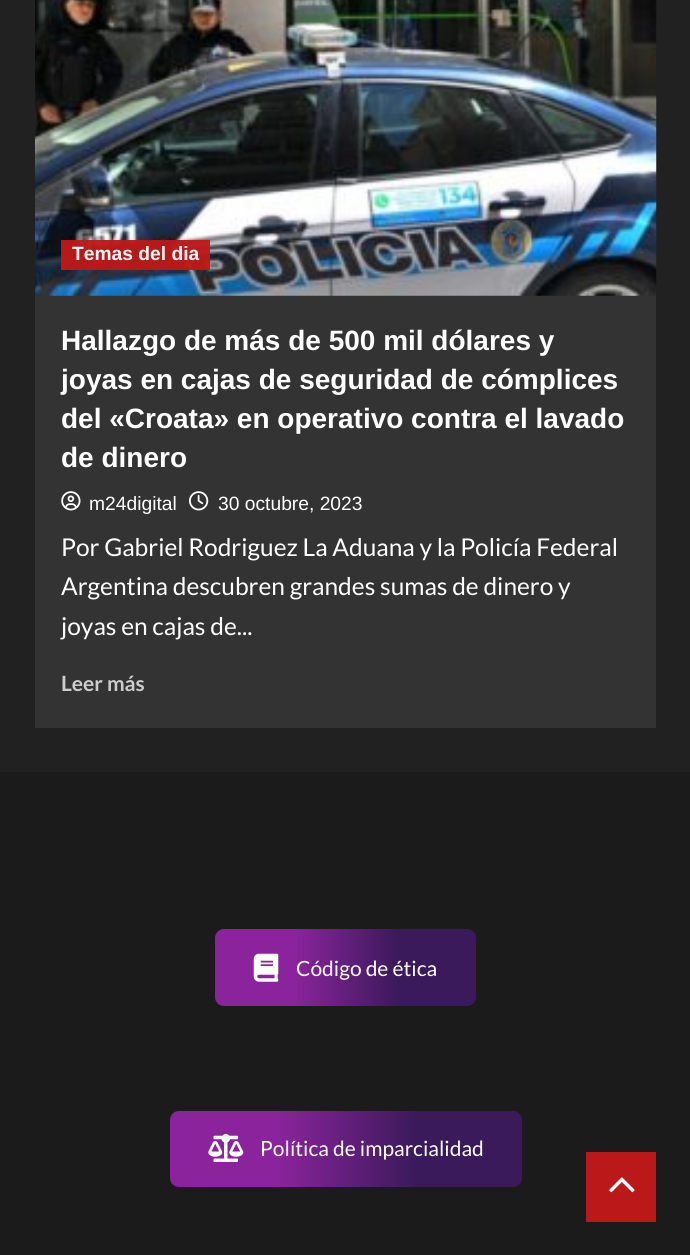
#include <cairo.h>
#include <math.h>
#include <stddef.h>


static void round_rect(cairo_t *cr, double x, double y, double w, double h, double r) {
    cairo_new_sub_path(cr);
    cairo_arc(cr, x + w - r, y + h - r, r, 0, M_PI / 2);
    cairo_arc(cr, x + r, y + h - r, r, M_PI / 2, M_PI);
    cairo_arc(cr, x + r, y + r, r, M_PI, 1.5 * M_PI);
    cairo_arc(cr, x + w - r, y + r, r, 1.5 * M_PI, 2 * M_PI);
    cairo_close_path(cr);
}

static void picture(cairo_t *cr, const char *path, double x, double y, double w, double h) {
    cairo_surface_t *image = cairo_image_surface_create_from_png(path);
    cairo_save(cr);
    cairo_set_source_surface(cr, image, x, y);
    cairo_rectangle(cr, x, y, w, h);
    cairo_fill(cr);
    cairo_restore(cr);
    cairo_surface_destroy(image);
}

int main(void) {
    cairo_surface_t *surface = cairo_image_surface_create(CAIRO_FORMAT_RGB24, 690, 1255);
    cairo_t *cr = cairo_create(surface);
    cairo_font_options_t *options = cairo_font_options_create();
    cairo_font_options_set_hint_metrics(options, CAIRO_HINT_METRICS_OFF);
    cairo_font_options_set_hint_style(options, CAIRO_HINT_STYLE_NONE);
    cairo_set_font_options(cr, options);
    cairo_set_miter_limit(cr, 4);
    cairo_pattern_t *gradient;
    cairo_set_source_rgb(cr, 0.129, 0.129, 0.129);
    cairo_paint(cr);
    cairo_set_source_rgb(cr, 0.2, 0.2, 0.2);
    cairo_rectangle(cr, 35, 295, 621, 433);
    cairo_fill(cr);
    picture(cr, "img1.png", 35, 0, 622, 296);
    cairo_set_source_rgba(cr, 0.733, 0.098, 0.098, 0.96);
    cairo_rectangle(cr, 61, 240, 149, 30);
    cairo_fill(cr);
    cairo_select_font_face(cr, "Liberation Sans", CAIRO_FONT_SLANT_NORMAL, CAIRO_FONT_WEIGHT_BOLD);
    cairo_set_font_size(cr, 19.25);
    cairo_set_source_rgb(cr, 0.988, 0.965, 0.965);
    cairo_move_to(cr, 72, 260);
    cairo_show_text(cr, "Temas del dia");
    cairo_set_font_size(cr, 28);
    cairo_set_source_rgb(cr, 1, 1, 1);
    cairo_move_to(cr, 61, 350);
    cairo_show_text(cr, "Hallazgo de más de 500 mil dólares y");
    cairo_move_to(cr, 61, 389);
    cairo_show_text(cr, "joyas en cajas de seguridad de cómplices");
    cairo_move_to(cr, 61, 428);
    cairo_show_text(cr, "del «Croata» en operativo contra el lavado");
    cairo_move_to(cr, 61, 467);
    cairo_show_text(cr, "de dinero");
    picture(cr, "img2.png", 61, 491, 20, 20);
    cairo_select_font_face(cr, "Liberation Sans", CAIRO_FONT_SLANT_NORMAL, CAIRO_FONT_WEIGHT_NORMAL);
    cairo_set_font_size(cr, 19.25);
    cairo_move_to(cr, 89, 510);
    cairo_show_text(cr, "m24digital");
    picture(cr, "img3.png", 189, 491, 20, 20);
    cairo_move_to(cr, 218, 510);
    cairo_show_text(cr, "30 octubre, 2023");
    cairo_select_font_face(cr, "Lato", CAIRO_FONT_SLANT_NORMAL, CAIRO_FONT_WEIGHT_NORMAL);
    cairo_set_font_size(cr, 24.5);
    cairo_move_to(cr, 61, 556);
    cairo_show_text(cr, "Por Gabriel Rodriguez La Aduana y la Policía Federal");
    cairo_move_to(cr, 61, 595);
    cairo_show_text(cr, "Argentina descubren grandes sumas de dinero y");
    cairo_move_to(cr, 61, 635);
    cairo_show_text(cr, "joyas en cajas de...");
    cairo_select_font_face(cr, "Lato", CAIRO_FONT_SLANT_NORMAL, CAIRO_FONT_WEIGHT_BOLD);
    cairo_set_font_size(cr, 21);
    cairo_set_source_rgb(cr, 0.8, 0.8, 0.8);
    cairo_move_to(cr, 61, 691);
    cairo_show_text(cr, "Leer más");
    cairo_set_source_rgb(cr, 0.106, 0.106, 0.11);
    cairo_rectangle(cr, 0, 772, 690, 483);
    cairo_fill(cr);
    gradient = cairo_pattern_create_linear(476, 968, 215, 968);
    cairo_pattern_add_color_stop_rgba(gradient, 0.3, 0.231, 0.102, 0.357, 1);
    cairo_pattern_add_color_stop_rgba(gradient, 0.7, 0.545, 0.141, 0.612, 1);
    cairo_set_source(cr, gradient);
    cairo_pattern_destroy(gradient);
    round_rect(cr, 215, 929, 261, 77, 9);
    cairo_fill(cr);
    picture(cr, "img4.png", 253, 953, 26, 29);
    cairo_select_font_face(cr, "Lato", CAIRO_FONT_SLANT_NORMAL, CAIRO_FONT_WEIGHT_NORMAL);
    cairo_set_source_rgb(cr, 1, 1, 1);
    cairo_move_to(cr, 296, 976);
    cairo_show_text(cr, "Código de ética");
    gradient = cairo_pattern_create_linear(522, 1149, 170, 1149);
    cairo_pattern_add_color_stop_rgba(gradient, 0.3, 0.231, 0.102, 0.357, 1);
    cairo_pattern_add_color_stop_rgba(gradient, 0.7, 0.545, 0.141, 0.612, 1);
    cairo_set_source(cr, gradient);
    cairo_pattern_destroy(gradient);
    round_rect(cr, 170, 1111, 352, 76, 9);
    cairo_fill(cr);
    picture(cr, "img5.png", 208, 1134, 36, 28);
    cairo_set_source_rgb(cr, 1, 1, 1);
    cairo_move_to(cr, 260, 1156);
    cairo_show_text(cr, "Política de imparcialidad");
    cairo_set_source_rgb(cr, 0.733, 0.098, 0.098);
    cairo_rectangle(cr, 586, 1152, 70, 70);
    cairo_fill(cr);
    picture(cr, "img6.png", 609, 1177, 26, 16);
    cairo_surface_write_to_png(surface, "page.png");
    cairo_font_options_destroy(options);
    cairo_destroy(cr);
    cairo_surface_destroy(surface);
    return 0;
}
